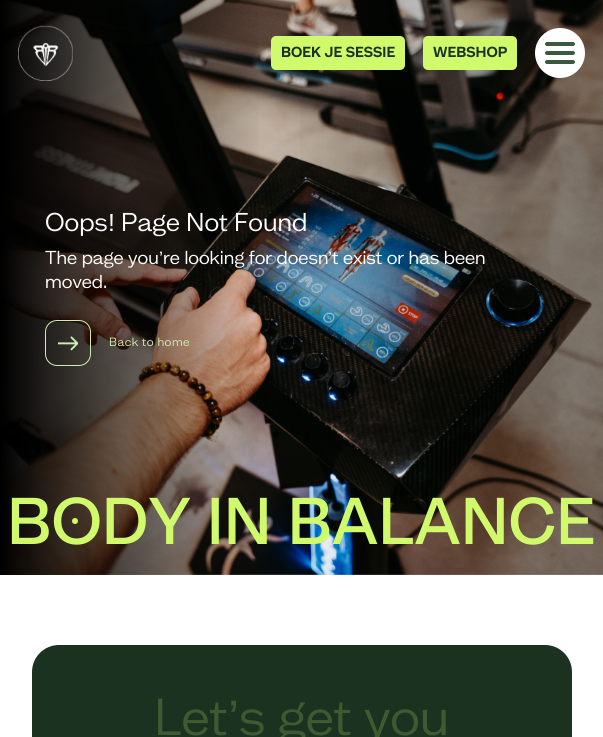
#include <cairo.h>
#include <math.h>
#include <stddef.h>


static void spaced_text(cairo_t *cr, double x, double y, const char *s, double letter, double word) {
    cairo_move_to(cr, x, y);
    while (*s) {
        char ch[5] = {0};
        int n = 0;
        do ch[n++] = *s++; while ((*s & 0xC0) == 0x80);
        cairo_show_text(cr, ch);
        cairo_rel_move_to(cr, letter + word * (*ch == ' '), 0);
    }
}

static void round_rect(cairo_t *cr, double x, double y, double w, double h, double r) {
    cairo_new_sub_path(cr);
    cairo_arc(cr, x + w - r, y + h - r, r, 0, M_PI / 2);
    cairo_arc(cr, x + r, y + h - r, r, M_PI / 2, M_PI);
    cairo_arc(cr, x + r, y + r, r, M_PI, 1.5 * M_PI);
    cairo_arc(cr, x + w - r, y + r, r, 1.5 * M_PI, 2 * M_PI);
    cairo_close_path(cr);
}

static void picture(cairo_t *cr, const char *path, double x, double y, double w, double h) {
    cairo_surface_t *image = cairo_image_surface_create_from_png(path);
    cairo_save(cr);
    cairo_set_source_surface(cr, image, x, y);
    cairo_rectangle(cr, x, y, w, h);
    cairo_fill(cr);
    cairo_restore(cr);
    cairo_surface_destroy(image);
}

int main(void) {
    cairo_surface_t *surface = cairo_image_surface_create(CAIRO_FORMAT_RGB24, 603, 737);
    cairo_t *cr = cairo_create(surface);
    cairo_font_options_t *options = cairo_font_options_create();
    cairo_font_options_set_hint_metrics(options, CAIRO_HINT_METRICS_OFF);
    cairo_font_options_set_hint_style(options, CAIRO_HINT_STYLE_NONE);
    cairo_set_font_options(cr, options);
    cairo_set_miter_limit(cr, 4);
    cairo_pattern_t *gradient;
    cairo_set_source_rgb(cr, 1, 1, 1);
    cairo_paint(cr);
    picture(cr, "img2.png", 2, 0, 601, 575);
    gradient = cairo_pattern_create_linear(0, 288, 265, 288);
    cairo_pattern_add_color_stop_rgba(gradient, 0, 0, 0, 0, 1);
    cairo_pattern_add_color_stop_rgba(gradient, 1, 0, 0, 0, 0);
    cairo_set_source(cr, gradient);
    cairo_pattern_destroy(gradient);
    cairo_rectangle(cr, 0, 0, 259, 575);
    cairo_fill(cr);
    picture(cr, "img1.png", 18, 25, 55, 56);
    gradient = cairo_pattern_create_linear(603, 287, 277, 288);
    cairo_pattern_add_color_stop_rgba(gradient, 0.33, 0, 0, 0, 0.2);
    cairo_pattern_add_color_stop_rgba(gradient, 1, 0, 0, 0, 0);
    cairo_set_source(cr, gradient);
    cairo_pattern_destroy(gradient);
    cairo_rectangle(cr, 300, 0, 303, 575);
    cairo_fill(cr);
    cairo_set_source_rgb(cr, 0.816, 0.98, 0.42);
    round_rect(cr, 271, 36, 134, 34, 5);
    cairo_fill(cr);
    cairo_select_font_face(cr, "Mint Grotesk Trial", CAIRO_FONT_SLANT_NORMAL, CAIRO_FONT_WEIGHT_BOLD);
    cairo_set_font_size(cr, 14);
    cairo_set_source_rgb(cr, 0.106, 0.196, 0.129);
    cairo_move_to(cr, 281, 57);
    cairo_show_text(cr, "BOEK JE SESSIE");
    cairo_set_source_rgb(cr, 0.816, 0.98, 0.42);
    round_rect(cr, 423, 36, 94, 34, 5);
    cairo_fill(cr);
    cairo_set_source_rgb(cr, 0.106, 0.196, 0.129);
    cairo_move_to(cr, 433, 57);
    cairo_show_text(cr, "WEBSHOP");
    cairo_set_source_rgb(cr, 1, 1, 1);
    cairo_new_path(cr);
    cairo_arc(cr, 560, 53, 25, 0, 2 * M_PI);
    cairo_fill(cr);
    cairo_set_source_rgb(cr, 0.227, 0.353, 0.251);
    round_rect(cr, 545, 42, 30, 4, 2);
    cairo_fill(cr);
    round_rect(cr, 545, 51, 30, 4, 2);
    cairo_fill(cr);
    round_rect(cr, 545, 60, 30, 4, 2);
    cairo_fill(cr);
    cairo_select_font_face(cr, "Mint Grotesk Trial", CAIRO_FONT_SLANT_NORMAL, CAIRO_FONT_WEIGHT_NORMAL);
    cairo_set_font_size(cr, 24.75);
    cairo_set_source_rgb(cr, 1, 1, 1);
    cairo_move_to(cr, 45, 231);
    cairo_show_text(cr, "Oops");
    cairo_select_font_face(cr, "Liberation Sans", CAIRO_FONT_SLANT_NORMAL, CAIRO_FONT_WEIGHT_NORMAL);
    cairo_move_to(cr, 108, 231);
    cairo_show_text(cr, "!");
    cairo_select_font_face(cr, "Mint Grotesk Trial", CAIRO_FONT_SLANT_NORMAL, CAIRO_FONT_WEIGHT_NORMAL);
    cairo_move_to(cr, 121, 231);
    cairo_show_text(cr, "Page Not Found");
    cairo_set_font_size(cr, 18);
    cairo_move_to(cr, 45, 264);
    cairo_show_text(cr, "The page you");
    cairo_select_font_face(cr, "Liberation Sans", CAIRO_FONT_SLANT_NORMAL, CAIRO_FONT_WEIGHT_NORMAL);
    cairo_move_to(cr, 159, 264);
    cairo_show_text(cr, "’");
    cairo_select_font_face(cr, "Mint Grotesk Trial", CAIRO_FONT_SLANT_NORMAL, CAIRO_FONT_WEIGHT_NORMAL);
    cairo_move_to(cr, 163, 264);
    cairo_show_text(cr, "re looking for doesn");
    cairo_select_font_face(cr, "Liberation Sans", CAIRO_FONT_SLANT_NORMAL, CAIRO_FONT_WEIGHT_NORMAL);
    cairo_move_to(cr, 328, 264);
    cairo_show_text(cr, "’");
    cairo_select_font_face(cr, "Mint Grotesk Trial", CAIRO_FONT_SLANT_NORMAL, CAIRO_FONT_WEIGHT_NORMAL);
    cairo_move_to(cr, 332, 264);
    cairo_show_text(cr, "t exist or has been");
    cairo_move_to(cr, 45, 288);
    cairo_show_text(cr, "moved.");
    picture(cr, "img3.png", 58, 336, 20, 15);
    round_rect(cr, 45.5, 320.5, 45, 45, 11.5);
    cairo_set_source_rgb(cr, 0.808, 0.929, 0.698);
    cairo_set_line_width(cr, 1);
    cairo_stroke(cr);
    cairo_set_font_size(cr, 11.5);
    spaced_text(cr, 109, 346, "Back to home", 0.5, 0);
    cairo_select_font_face(cr, "Mint Grotesk Trial Medium", CAIRO_FONT_SLANT_NORMAL, CAIRO_FONT_WEIGHT_NORMAL);
    cairo_set_font_size(cr, 63.25);
    cairo_set_source_rgb(cr, 0.816, 0.98, 0.42);
    cairo_move_to(cr, 7, 544);
    cairo_show_text(cr, "BODY IN BALANCE");
    cairo_new_path(cr);
    cairo_arc(cr, 75, 521, 3, 0, 2 * M_PI);
    cairo_fill(cr);
    cairo_set_source_rgb(cr, 0.106, 0.196, 0.129);
    round_rect(cr, 32, 645, 540, 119, 27);
    cairo_fill(cr);
    cairo_select_font_face(cr, "Mint Grotesk Trial", CAIRO_FONT_SLANT_NORMAL, CAIRO_FONT_WEIGHT_NORMAL);
    cairo_set_font_size(cr, 50);
    cairo_set_source_rgb(cr, 0.247, 0.353, 0.188);
    cairo_move_to(cr, 154, 735);
    cairo_show_text(cr, "Let");
    cairo_select_font_face(cr, "Liberation Sans", CAIRO_FONT_SLANT_NORMAL, CAIRO_FONT_WEIGHT_NORMAL);
    cairo_move_to(cr, 228, 735);
    cairo_show_text(cr, "’");
    cairo_select_font_face(cr, "Mint Grotesk Trial", CAIRO_FONT_SLANT_NORMAL, CAIRO_FONT_WEIGHT_NORMAL);
    cairo_move_to(cr, 239, 735);
    cairo_show_text(cr, "s get you");
    cairo_surface_write_to_png(surface, "page.png");
    cairo_font_options_destroy(options);
    cairo_destroy(cr);
    cairo_surface_destroy(surface);
    return 0;
}
